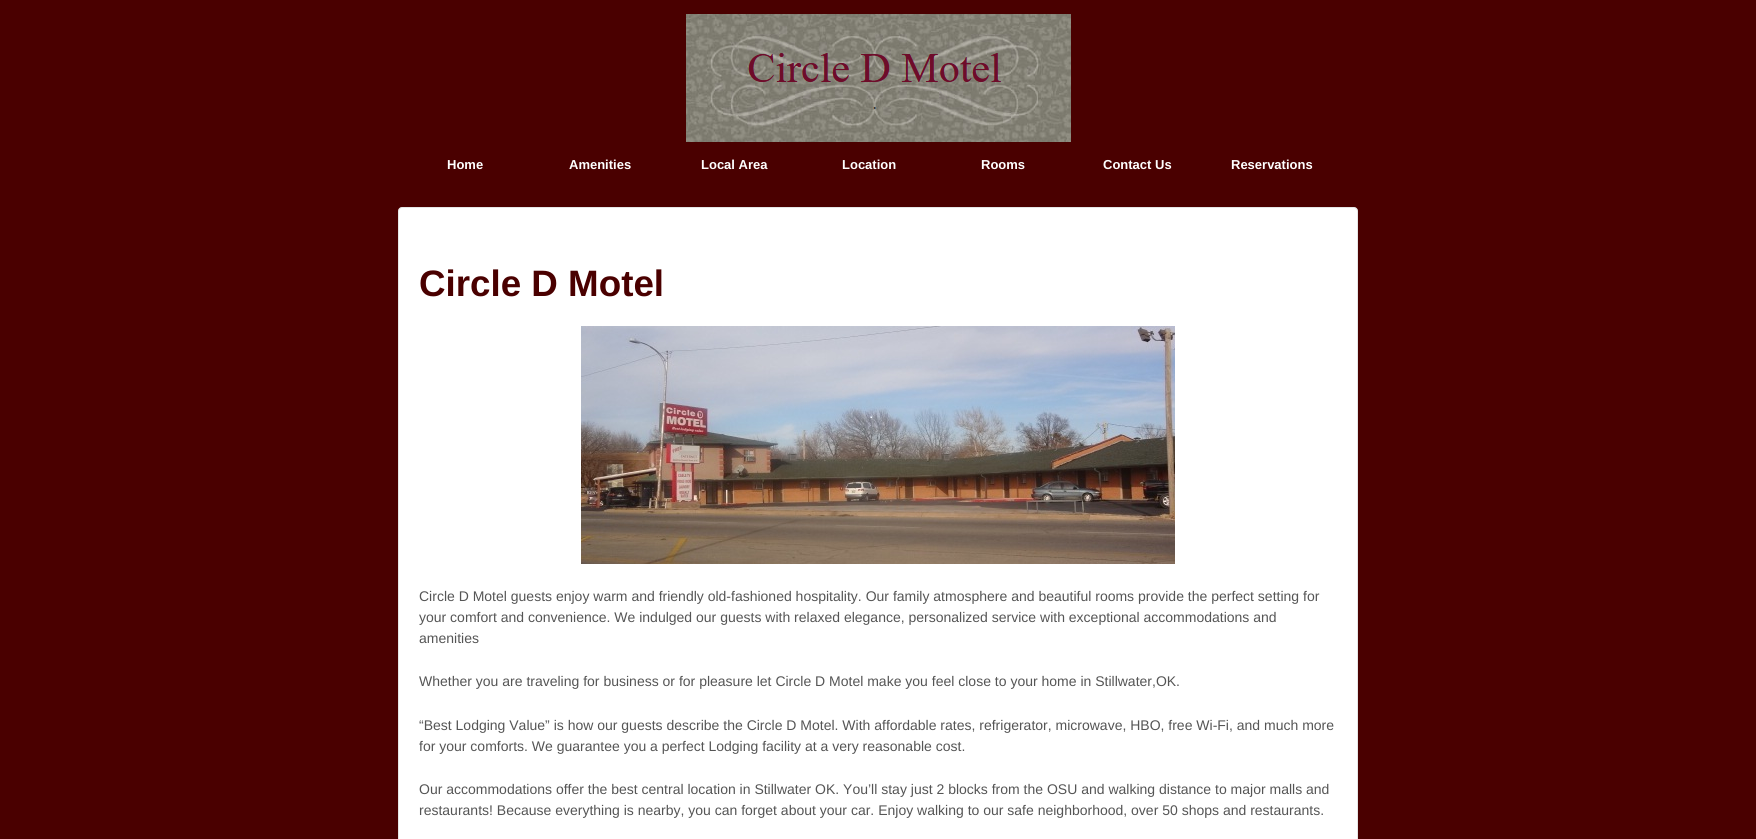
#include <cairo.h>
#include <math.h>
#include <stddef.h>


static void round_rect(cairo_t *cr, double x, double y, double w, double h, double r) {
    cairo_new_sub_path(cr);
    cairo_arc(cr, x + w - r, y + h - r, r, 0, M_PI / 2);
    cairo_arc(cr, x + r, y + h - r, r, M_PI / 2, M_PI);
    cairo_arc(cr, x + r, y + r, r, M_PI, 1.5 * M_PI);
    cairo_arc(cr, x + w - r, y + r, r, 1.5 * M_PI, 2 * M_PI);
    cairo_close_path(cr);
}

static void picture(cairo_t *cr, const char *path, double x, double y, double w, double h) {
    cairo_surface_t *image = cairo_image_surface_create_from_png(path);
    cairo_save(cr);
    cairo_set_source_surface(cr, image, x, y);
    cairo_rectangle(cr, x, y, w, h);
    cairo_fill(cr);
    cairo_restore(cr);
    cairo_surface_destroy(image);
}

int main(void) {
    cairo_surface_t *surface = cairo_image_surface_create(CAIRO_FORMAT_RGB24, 1756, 839);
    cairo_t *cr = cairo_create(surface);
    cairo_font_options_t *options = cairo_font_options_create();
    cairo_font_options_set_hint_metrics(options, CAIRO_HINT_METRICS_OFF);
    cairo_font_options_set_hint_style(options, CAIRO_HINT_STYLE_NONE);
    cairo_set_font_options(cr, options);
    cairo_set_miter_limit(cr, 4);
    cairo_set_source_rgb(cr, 0.29, 0, 0);
    cairo_paint(cr);
    picture(cr, "img1.png", 686, 14, 385, 128);
    cairo_select_font_face(cr, "Liberation Sans", CAIRO_FONT_SLANT_NORMAL, CAIRO_FONT_WEIGHT_BOLD);
    cairo_set_font_size(cr, 13);
    cairo_set_source_rgb(cr, 1, 1, 1);
    cairo_move_to(cr, 447, 169);
    cairo_show_text(cr, "Home");
    cairo_move_to(cr, 569, 169);
    cairo_show_text(cr, "Amenities");
    cairo_move_to(cr, 701, 169);
    cairo_show_text(cr, "Local Area");
    cairo_move_to(cr, 842, 169);
    cairo_show_text(cr, "Location");
    cairo_move_to(cr, 981, 169);
    cairo_show_text(cr, "Rooms");
    cairo_move_to(cr, 1103, 169);
    cairo_show_text(cr, "Contact Us");
    cairo_move_to(cr, 1231, 169);
    cairo_show_text(cr, "Reservations");
    round_rect(cr, 398.5, 207.5, 959, 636, 3.5);
    cairo_fill_preserve(cr);
    cairo_set_source_rgb(cr, 0.898, 0.898, 0.898);
    cairo_set_line_width(cr, 1);
    cairo_stroke(cr);
    cairo_set_font_size(cr, 36.75);
    cairo_set_source_rgb(cr, 0.29, 0, 0);
    cairo_move_to(cr, 419, 296);
    cairo_show_text(cr, "Circle D Motel");
    picture(cr, "img2.png", 581, 326, 594, 238);
    cairo_select_font_face(cr, "Liberation Sans", CAIRO_FONT_SLANT_NORMAL, CAIRO_FONT_WEIGHT_NORMAL);
    cairo_set_font_size(cr, 14);
    cairo_set_source_rgb(cr, 0.333, 0.333, 0.333);
    cairo_move_to(cr, 419, 601);
    cairo_show_text(cr, "Circle D Motel guests enjoy warm and friendly old-fashioned hospitality. Our family atmosphere and beautiful rooms provide the perfect setting for");
    cairo_move_to(cr, 419, 622);
    cairo_show_text(cr, "your comfort and convenience. We indulged our guests with relaxed elegance, personalized service with exceptional accommodations and");
    cairo_move_to(cr, 419, 643);
    cairo_show_text(cr, "amenities");
    cairo_move_to(cr, 419, 686);
    cairo_show_text(cr, "Whether you are traveling for business or for pleasure let Circle D Motel make you feel close to your home in Stillwater,OK.");
    cairo_move_to(cr, 419, 730);
    cairo_show_text(cr, "“Best Lodging Value” is how our guests describe the Circle D Motel. With affordable rates, refrigerator, microwave, HBO, free Wi-Fi, and much more");
    cairo_move_to(cr, 419, 751);
    cairo_show_text(cr, "for your comforts. We guarantee you a perfect Lodging facility at a very reasonable cost.");
    cairo_move_to(cr, 419, 794);
    cairo_show_text(cr, "Our accommodations offer the best central location in Stillwater OK. You’ll stay just 2 blocks from the OSU and walking distance to major malls and");
    cairo_move_to(cr, 419, 815);
    cairo_show_text(cr, "restaurants! Because everything is nearby, you can forget about your car. Enjoy walking to our safe neighborhood, over 50 shops and restaurants.");
    cairo_surface_write_to_png(surface, "page.png");
    cairo_font_options_destroy(options);
    cairo_destroy(cr);
    cairo_surface_destroy(surface);
    return 0;
}
